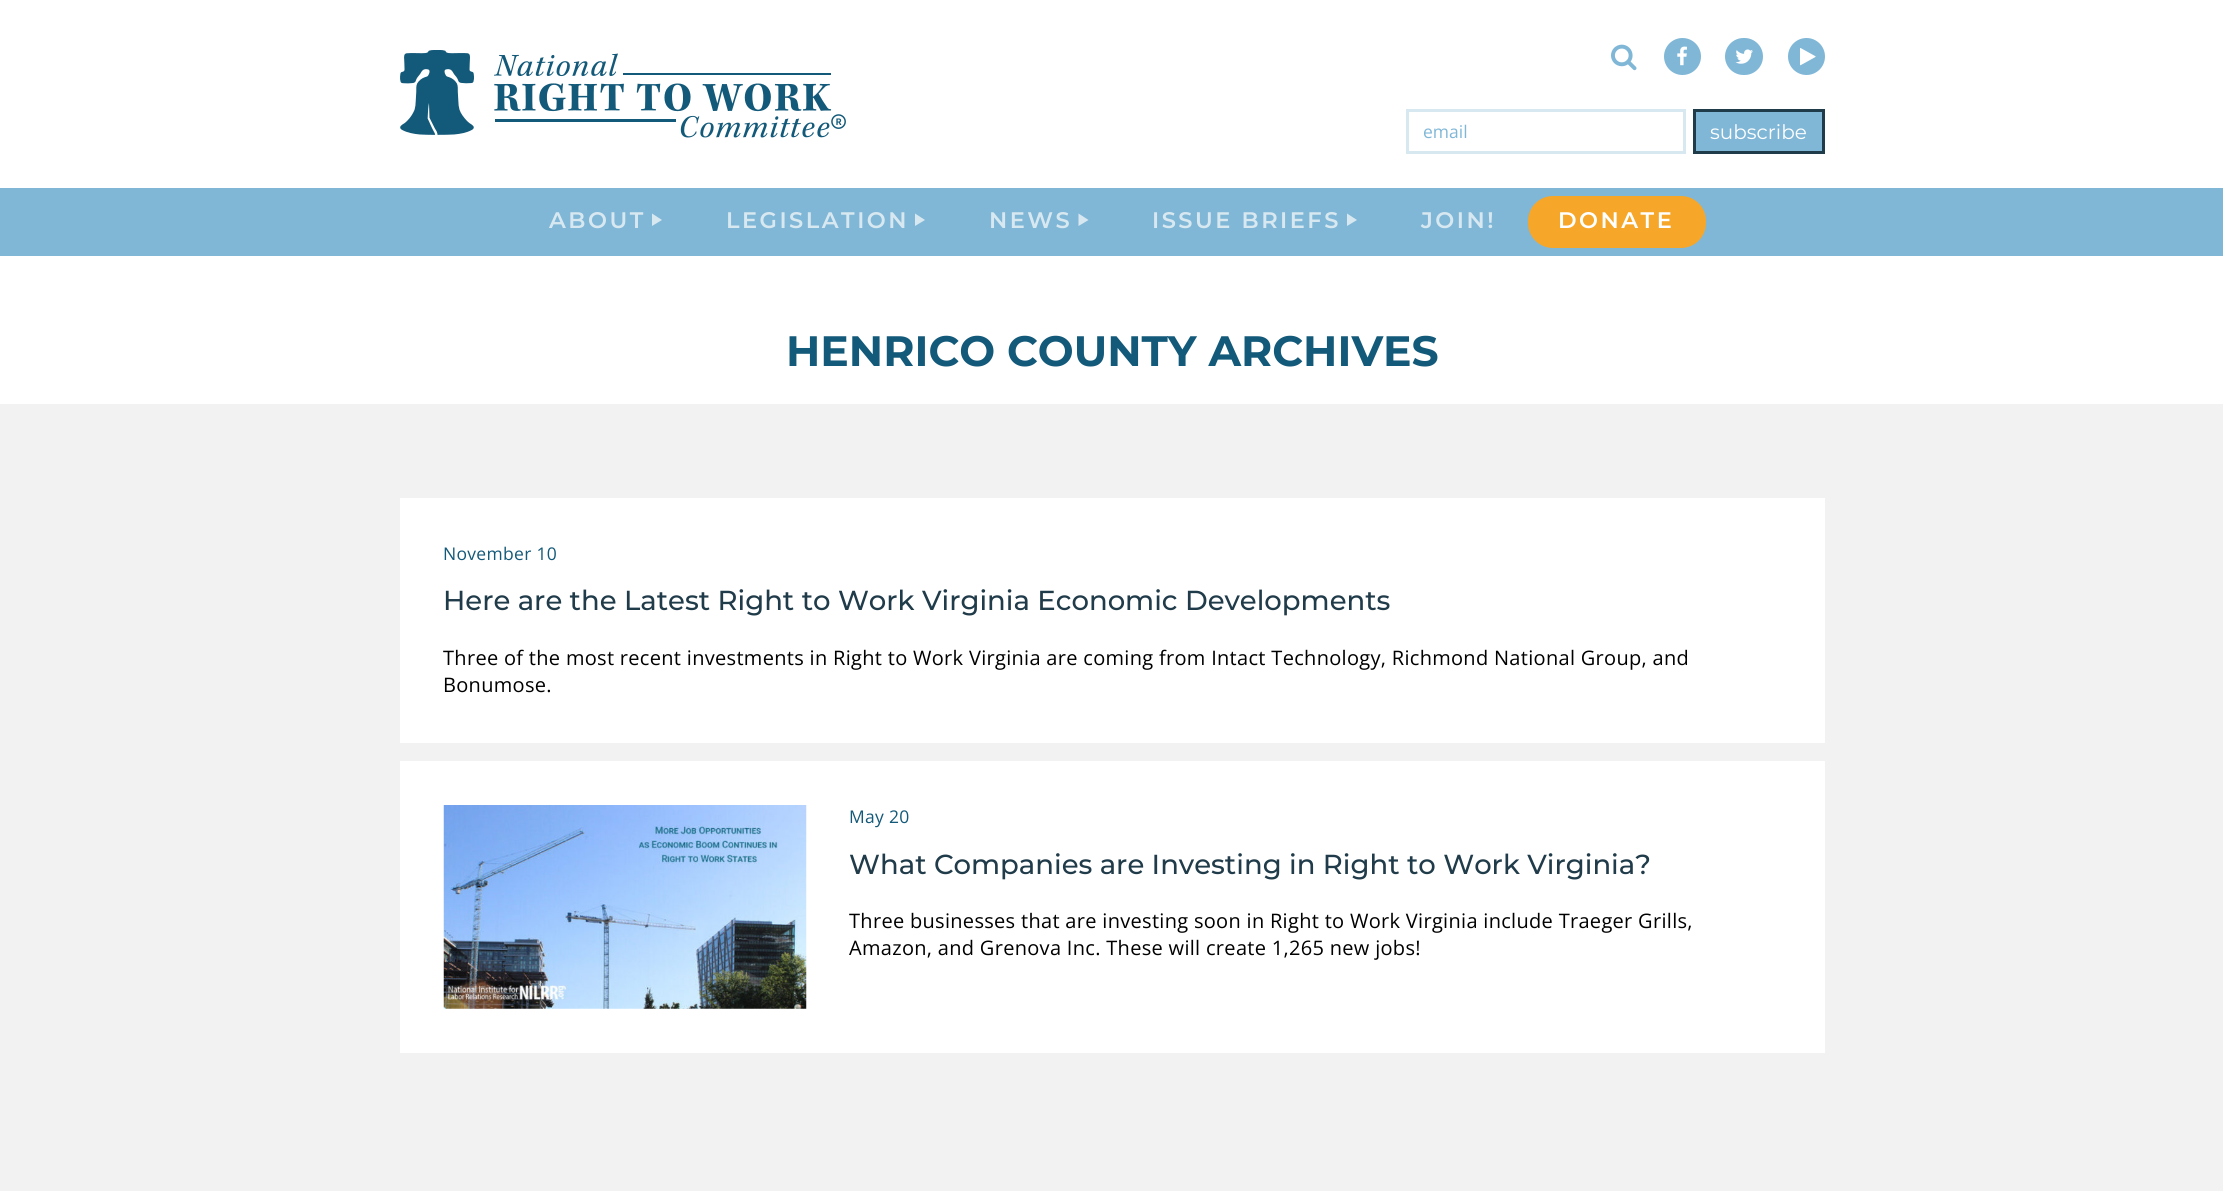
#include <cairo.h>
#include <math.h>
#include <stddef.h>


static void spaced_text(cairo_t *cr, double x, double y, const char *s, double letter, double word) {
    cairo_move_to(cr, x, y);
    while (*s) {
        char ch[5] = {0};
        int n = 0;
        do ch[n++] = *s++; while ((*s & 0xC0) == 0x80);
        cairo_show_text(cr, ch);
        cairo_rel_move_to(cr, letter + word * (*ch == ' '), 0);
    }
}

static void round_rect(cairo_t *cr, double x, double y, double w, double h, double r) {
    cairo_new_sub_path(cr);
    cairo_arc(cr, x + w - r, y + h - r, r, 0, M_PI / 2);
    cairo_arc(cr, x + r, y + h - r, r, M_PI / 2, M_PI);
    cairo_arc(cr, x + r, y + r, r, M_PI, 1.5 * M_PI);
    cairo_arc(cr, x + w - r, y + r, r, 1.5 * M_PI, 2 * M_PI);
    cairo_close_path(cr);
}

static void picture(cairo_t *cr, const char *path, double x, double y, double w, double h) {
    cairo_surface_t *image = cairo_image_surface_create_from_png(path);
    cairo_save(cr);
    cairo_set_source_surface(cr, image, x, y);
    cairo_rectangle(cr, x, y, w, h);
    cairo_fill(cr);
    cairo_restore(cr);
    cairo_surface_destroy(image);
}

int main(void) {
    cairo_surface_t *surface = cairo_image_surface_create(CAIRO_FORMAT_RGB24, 2223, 1191);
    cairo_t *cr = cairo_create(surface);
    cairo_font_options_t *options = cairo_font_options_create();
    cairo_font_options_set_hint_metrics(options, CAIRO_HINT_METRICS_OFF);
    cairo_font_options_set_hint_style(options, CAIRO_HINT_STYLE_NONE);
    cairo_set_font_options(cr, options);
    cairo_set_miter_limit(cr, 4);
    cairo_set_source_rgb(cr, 1, 1, 1);
    cairo_paint(cr);
    picture(cr, "img1.png", 400, 50, 446, 88);
    picture(cr, "img2.png", 1611, 44, 26, 27);
    cairo_set_source_rgb(cr, 0.502, 0.718, 0.843);
    cairo_arc(cr, 1682.5, 56.5, 18.5, 0, 2 * M_PI);
    cairo_fill(cr);
    picture(cr, "img3.png", 1677, 46, 10, 20);
    round_rect(cr, 1725, 38, 38, 37, 18.5);
    cairo_fill(cr);
    picture(cr, "img4.png", 1735, 49, 18, 15);
    cairo_arc(cr, 1806.5, 56.5, 18.5, 0, 2 * M_PI);
    cairo_fill(cr);
    picture(cr, "img5.png", 1800, 48, 16, 18);
    cairo_rectangle(cr, 1407.5, 110.5, 277, 42);
    cairo_set_source_rgb(cr, 0.847, 0.91, 0.945);
    cairo_set_line_width(cr, 3);
    cairo_stroke(cr);
    cairo_select_font_face(cr, "Open Sans", CAIRO_FONT_SLANT_NORMAL, CAIRO_FONT_WEIGHT_NORMAL);
    cairo_set_font_size(cr, 17.5);
    cairo_set_source_rgb(cr, 0.502, 0.718, 0.843);
    cairo_move_to(cr, 1423, 138);
    cairo_show_text(cr, "email");
    cairo_rectangle(cr, 1694.5, 110.5, 129, 42);
    cairo_fill_preserve(cr);
    cairo_set_source_rgb(cr, 0.125, 0.231, 0.286);
    cairo_stroke(cr);
    cairo_select_font_face(cr, "Montserrat", CAIRO_FONT_SLANT_NORMAL, CAIRO_FONT_WEIGHT_NORMAL);
    cairo_set_font_size(cr, 20);
    cairo_set_source_rgb(cr, 1, 1, 1);
    cairo_move_to(cr, 1710, 139);
    cairo_show_text(cr, "subscribe");
    cairo_set_source_rgb(cr, 0.502, 0.718, 0.843);
    cairo_rectangle(cr, 0, 188, 2223, 68);
    cairo_fill(cr);
    cairo_select_font_face(cr, "Montserrat SemiBold", CAIRO_FONT_SLANT_NORMAL, CAIRO_FONT_WEIGHT_NORMAL);
    cairo_set_font_size(cr, 22.5);
    cairo_set_source_rgb(cr, 0.847, 0.91, 0.945);
    spaced_text(cr, 549, 228, "ABOUT", 2.5, 0);
    cairo_new_path(cr);
    cairo_move_to(cr, 652, 226);
    cairo_line_to(cr, 652, 213.5);
    cairo_line_to(cr, 662, 220);
    cairo_close_path(cr);
    cairo_fill(cr);
    spaced_text(cr, 726, 228, "LEGISLATION", 2.5, 0);
    cairo_new_path(cr);
    cairo_move_to(cr, 915, 226);
    cairo_line_to(cr, 915, 213.5);
    cairo_line_to(cr, 925, 220);
    cairo_close_path(cr);
    cairo_fill(cr);
    spaced_text(cr, 989, 228, "NEWS", 2.5, 0);
    cairo_new_path(cr);
    cairo_move_to(cr, 1078.5, 226);
    cairo_line_to(cr, 1078.5, 213.5);
    cairo_line_to(cr, 1088.5, 220);
    cairo_close_path(cr);
    cairo_fill(cr);
    spaced_text(cr, 1152, 228, "ISSUE BRIEFS", 2.5, 0);
    cairo_new_path(cr);
    cairo_move_to(cr, 1347, 226);
    cairo_line_to(cr, 1347, 213.5);
    cairo_line_to(cr, 1357, 220);
    cairo_close_path(cr);
    cairo_fill(cr);
    spaced_text(cr, 1421, 228, "JOIN!", 2.5, 0);
    cairo_set_source_rgb(cr, 0.961, 0.651, 0.157);
    round_rect(cr, 1528, 196, 178, 52, 25);
    cairo_fill(cr);
    cairo_set_source_rgb(cr, 1, 1, 1);
    spaced_text(cr, 1558, 228, "DONATE", 2.5, 0);
    cairo_select_font_face(cr, "Montserrat", CAIRO_FONT_SLANT_NORMAL, CAIRO_FONT_WEIGHT_BOLD);
    cairo_set_font_size(cr, 42.5);
    cairo_set_source_rgb(cr, 0.075, 0.349, 0.475);
    cairo_move_to(cr, 786, 366);
    cairo_show_text(cr, "HENRICO COUNTY ARCHIVES");
    cairo_set_source_rgb(cr, 0.949, 0.949, 0.949);
    cairo_rectangle(cr, 0, 404, 2223, 787);
    cairo_fill(cr);
    cairo_set_source_rgb(cr, 1, 1, 1);
    cairo_rectangle(cr, 400, 498, 1425, 245);
    cairo_fill(cr);
    cairo_select_font_face(cr, "Open Sans", CAIRO_FONT_SLANT_NORMAL, CAIRO_FONT_WEIGHT_NORMAL);
    cairo_set_font_size(cr, 17.5);
    cairo_set_source_rgb(cr, 0.075, 0.349, 0.475);
    spaced_text(cr, 443, 560, "November 10", 0.31, 0);
    cairo_select_font_face(cr, "Montserrat Medium", CAIRO_FONT_SLANT_NORMAL, CAIRO_FONT_WEIGHT_NORMAL);
    cairo_set_font_size(cr, 27.5);
    cairo_set_source_rgb(cr, 0.125, 0.231, 0.286);
    cairo_move_to(cr, 443, 610);
    cairo_show_text(cr, "Here are the Latest Right to Work Virginia Economic Developments");
    cairo_select_font_face(cr, "Open Sans", CAIRO_FONT_SLANT_NORMAL, CAIRO_FONT_WEIGHT_NORMAL);
    cairo_set_font_size(cr, 20);
    cairo_set_source_rgb(cr, 0, 0, 0);
    spaced_text(cr, 443, 665, "Three of the most recent investments in Right to Work Virginia are coming from Intact Technology, Richmond National Group, and", 0.31, 0);
    spaced_text(cr, 443, 692, "Bonumose.", 0.31, 0);
    cairo_set_source_rgb(cr, 1, 1, 1);
    cairo_rectangle(cr, 400, 761, 1425, 292);
    cairo_fill(cr);
    picture(cr, "img6.png", 443, 805, 364, 204);
    cairo_set_font_size(cr, 17.5);
    cairo_set_source_rgb(cr, 0.075, 0.349, 0.475);
    spaced_text(cr, 849, 823, "May 20", 0.31, 0);
    cairo_select_font_face(cr, "Montserrat Medium", CAIRO_FONT_SLANT_NORMAL, CAIRO_FONT_WEIGHT_NORMAL);
    cairo_set_font_size(cr, 27.5);
    cairo_set_source_rgb(cr, 0.125, 0.231, 0.286);
    cairo_move_to(cr, 849, 874);
    cairo_show_text(cr, "What Companies are Investing in Right to Work Virginia?");
    cairo_select_font_face(cr, "Open Sans", CAIRO_FONT_SLANT_NORMAL, CAIRO_FONT_WEIGHT_NORMAL);
    cairo_set_font_size(cr, 20);
    cairo_set_source_rgb(cr, 0, 0, 0);
    spaced_text(cr, 849, 928, "Three businesses that are investing soon in Right to Work Virginia include Traeger Grills,", 0.31, 0);
    spaced_text(cr, 849, 955, "Amazon, and Grenova Inc. These will create 1,265 new jobs!", 0.31, 0);
    cairo_surface_write_to_png(surface, "page.png");
    cairo_font_options_destroy(options);
    cairo_destroy(cr);
    cairo_surface_destroy(surface);
    return 0;
}
